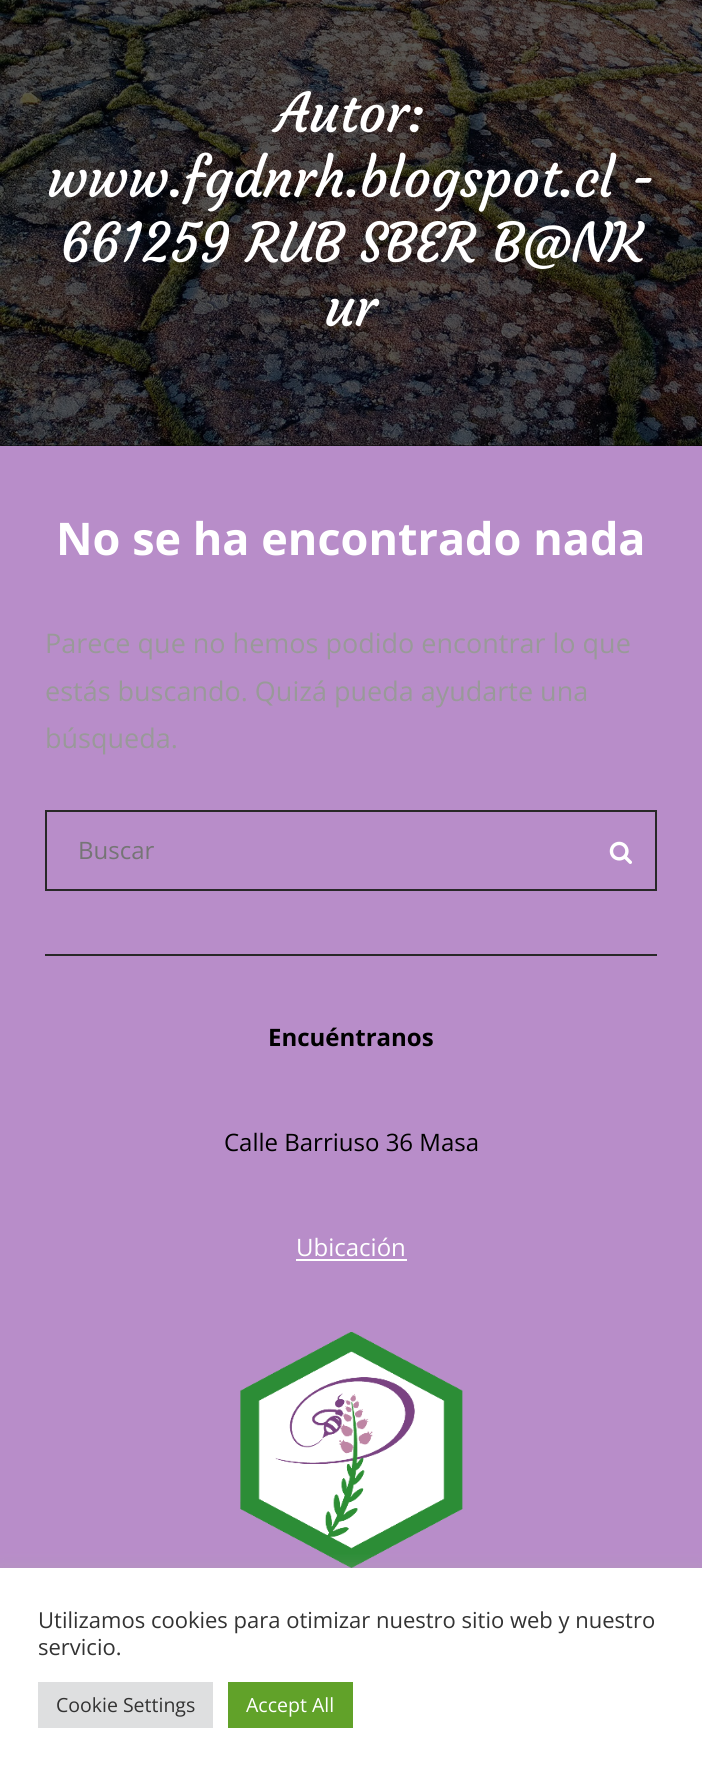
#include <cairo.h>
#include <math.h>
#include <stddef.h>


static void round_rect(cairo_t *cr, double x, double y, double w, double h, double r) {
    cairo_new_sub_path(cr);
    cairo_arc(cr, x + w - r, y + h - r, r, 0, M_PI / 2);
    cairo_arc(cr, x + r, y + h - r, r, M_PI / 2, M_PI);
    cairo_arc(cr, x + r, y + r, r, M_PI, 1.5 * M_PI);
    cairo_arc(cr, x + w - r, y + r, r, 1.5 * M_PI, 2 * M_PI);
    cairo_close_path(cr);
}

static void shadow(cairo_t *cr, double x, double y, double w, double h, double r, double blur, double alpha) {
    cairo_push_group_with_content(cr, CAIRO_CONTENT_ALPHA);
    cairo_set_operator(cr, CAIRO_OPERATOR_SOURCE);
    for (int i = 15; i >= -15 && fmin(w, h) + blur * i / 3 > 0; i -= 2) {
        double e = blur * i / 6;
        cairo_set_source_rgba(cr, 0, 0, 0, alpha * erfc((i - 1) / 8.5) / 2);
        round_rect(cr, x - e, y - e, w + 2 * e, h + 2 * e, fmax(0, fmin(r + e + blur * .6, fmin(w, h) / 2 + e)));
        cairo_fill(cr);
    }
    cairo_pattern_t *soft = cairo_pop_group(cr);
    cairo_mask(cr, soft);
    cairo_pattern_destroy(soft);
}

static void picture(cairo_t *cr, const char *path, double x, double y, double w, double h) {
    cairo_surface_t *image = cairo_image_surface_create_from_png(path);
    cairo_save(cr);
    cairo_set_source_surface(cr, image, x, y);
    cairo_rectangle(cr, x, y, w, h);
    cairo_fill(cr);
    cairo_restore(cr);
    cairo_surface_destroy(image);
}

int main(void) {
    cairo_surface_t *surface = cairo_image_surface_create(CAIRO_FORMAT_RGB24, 702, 1773);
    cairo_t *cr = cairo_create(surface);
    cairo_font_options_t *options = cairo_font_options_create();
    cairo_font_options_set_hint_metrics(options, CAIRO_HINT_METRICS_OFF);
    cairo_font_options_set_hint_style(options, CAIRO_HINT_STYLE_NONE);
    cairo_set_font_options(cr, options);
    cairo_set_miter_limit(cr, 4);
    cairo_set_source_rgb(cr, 0.722, 0.553, 0.788);
    cairo_paint(cr);
    cairo_set_source_rgb(cr, 0.024, 0.024, 0.024);
    cairo_rectangle(cr, 0, 445, 702, 1);
    cairo_fill(cr);
    picture(cr, "img1.png", 0, 0, 702, 446);
    cairo_select_font_face(cr, "Courgette", CAIRO_FONT_SLANT_NORMAL, CAIRO_FONT_WEIGHT_NORMAL);
    cairo_set_font_size(cr, 54);
    cairo_set_source_rgb(cr, 1, 1, 1);
    cairo_move_to(cr, 276, 132);
    cairo_show_text(cr, "Autor:");
    cairo_move_to(cr, 47, 197);
    cairo_show_text(cr, "www.fgdnrh.blogspot.cl -");
    cairo_move_to(cr, 60, 262);
    cairo_show_text(cr, "661259 RUB SBER B@NK");
    cairo_move_to(cr, 325, 326);
    cairo_show_text(cr, "ur");
    cairo_select_font_face(cr, "Open Sans", CAIRO_FONT_SLANT_NORMAL, CAIRO_FONT_WEIGHT_BOLD);
    cairo_set_font_size(cr, 45);
    cairo_move_to(cr, 56, 555);
    cairo_show_text(cr, "No se ha encontrado nada");
    cairo_select_font_face(cr, "Open Sans", CAIRO_FONT_SLANT_NORMAL, CAIRO_FONT_WEIGHT_NORMAL);
    cairo_set_font_size(cr, 27);
    cairo_set_source_rgb(cr, 0.6, 0.6, 0.6);
    cairo_move_to(cr, 45, 653);
    cairo_show_text(cr, "Parece que no hemos podido encontrar lo que");
    cairo_move_to(cr, 45, 701);
    cairo_show_text(cr, "estás buscando. Quizá pueda ayudarte una");
    cairo_move_to(cr, 45, 748);
    cairo_show_text(cr, "búsqueda.");
    cairo_rectangle(cr, 46, 811, 610, 79);
    cairo_set_source_rgb(cr, 0.157, 0.157, 0.157);
    cairo_stroke(cr);
    cairo_set_font_size(cr, 24);
    cairo_set_source_rgb(cr, 0.459, 0.459, 0.459);
    cairo_move_to(cr, 78, 859);
    cairo_show_text(cr, "Buscar");
    picture(cr, "img2.png", 609, 841, 23, 23);
    cairo_set_source_rgb(cr, 0.157, 0.157, 0.157);
    cairo_rectangle(cr, 45, 954, 612, 2);
    cairo_fill(cr);
    cairo_select_font_face(cr, "Open Sans", CAIRO_FONT_SLANT_NORMAL, CAIRO_FONT_WEIGHT_BOLD);
    cairo_set_source_rgb(cr, 0, 0, 0);
    cairo_move_to(cr, 268, 1046);
    cairo_show_text(cr, "Encuéntranos");
    cairo_select_font_face(cr, "Open Sans", CAIRO_FONT_SLANT_NORMAL, CAIRO_FONT_WEIGHT_NORMAL);
    cairo_move_to(cr, 224, 1151);
    cairo_show_text(cr, "Calle Barriuso 36 Masa");
    cairo_set_source_rgb(cr, 1, 1, 1);
    cairo_move_to(cr, 296, 1256);
    cairo_show_text(cr, "Ubicación");
    cairo_rectangle(cr, 296, 1259, 111, 2);
    cairo_fill(cr);
    picture(cr, "img3.png", 240, 1332, 223, 236);
    cairo_set_source_rgb(cr, 0.675, 0.671, 0.671);
    shadow(cr, 0, 1566, 702, 206, 0, 7.5, 0.3);
    cairo_set_source_rgb(cr, 1, 1, 1);
    cairo_rectangle(cr, 0, 1568, 702, 205);
    cairo_fill(cr);
    cairo_set_font_size(cr, 22);
    cairo_set_source_rgb(cr, 0.2, 0.2, 0.2);
    cairo_move_to(cr, 38, 1628);
    cairo_show_text(cr, "Utilizamos cookies para otimizar nuestro sitio web y nuestro");
    cairo_move_to(cr, 38, 1655);
    cairo_show_text(cr, "servicio.");
    cairo_set_source_rgb(cr, 0.871, 0.875, 0.878);
    cairo_rectangle(cr, 38, 1682, 175, 46);
    cairo_fill(cr);
    cairo_set_font_size(cr, 19.5);
    cairo_set_source_rgb(cr, 0.2, 0.2, 0.2);
    cairo_move_to(cr, 56, 1712);
    cairo_show_text(cr, "Cookie Settings");
    cairo_set_source_rgb(cr, 0.38, 0.635, 0.161);
    cairo_rectangle(cr, 228, 1682, 125, 46);
    cairo_fill(cr);
    cairo_set_source_rgb(cr, 1, 1, 1);
    cairo_move_to(cr, 246, 1712);
    cairo_show_text(cr, "Accept All");
    cairo_surface_write_to_png(surface, "page.png");
    cairo_font_options_destroy(options);
    cairo_destroy(cr);
    cairo_surface_destroy(surface);
    return 0;
}
